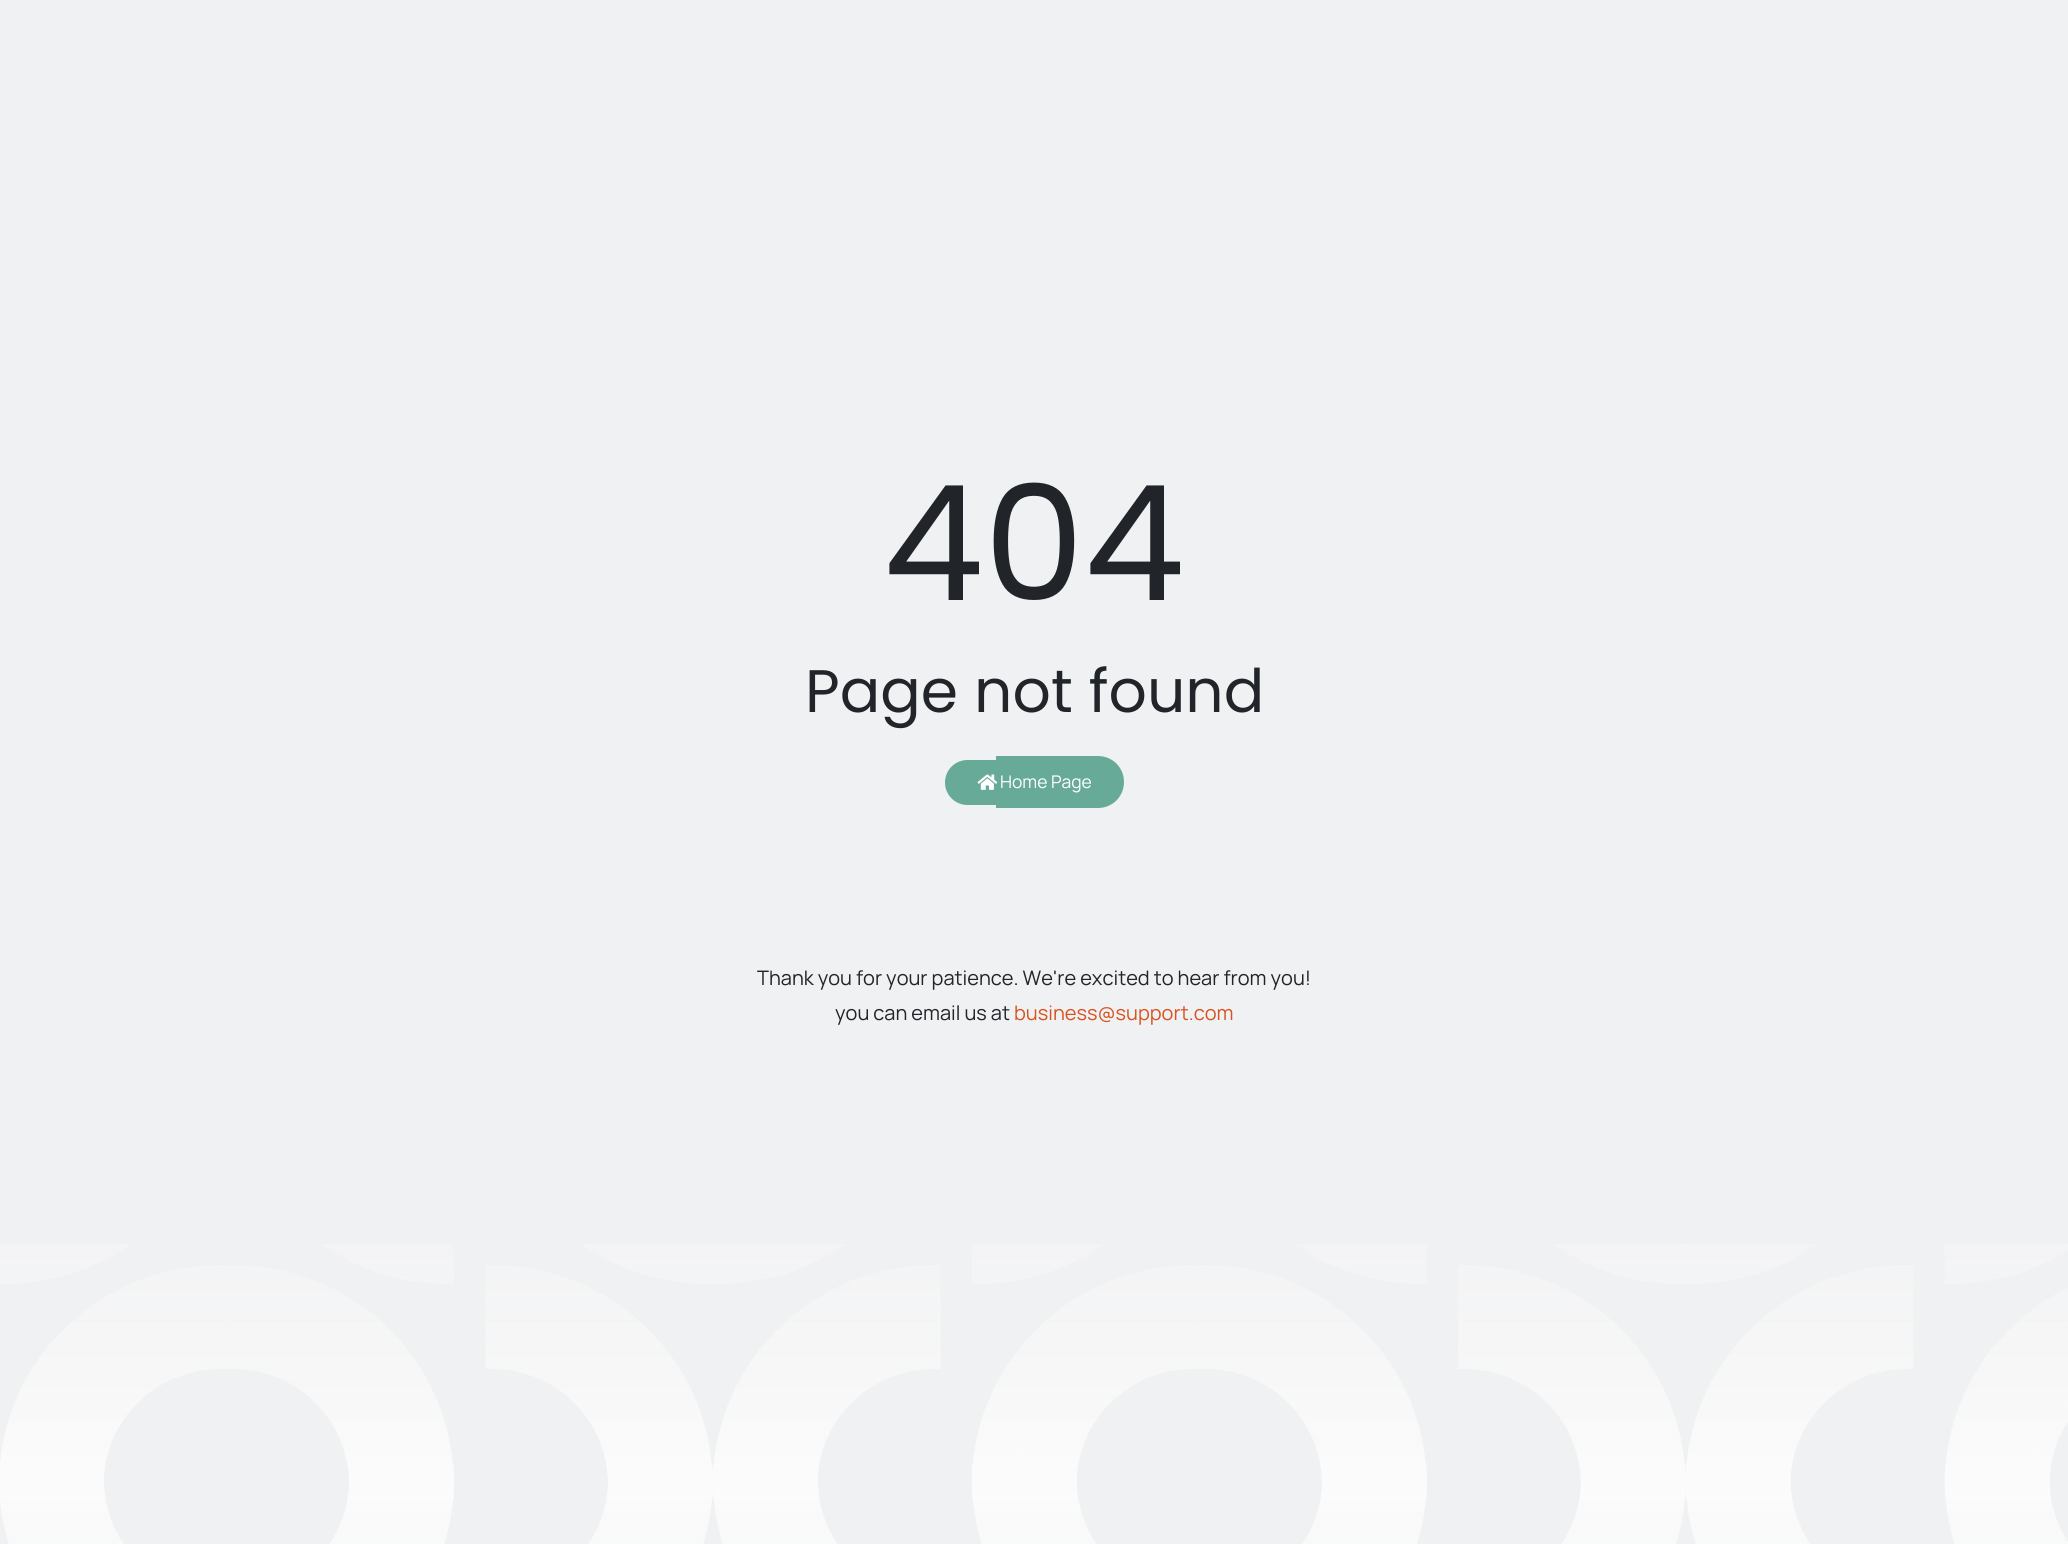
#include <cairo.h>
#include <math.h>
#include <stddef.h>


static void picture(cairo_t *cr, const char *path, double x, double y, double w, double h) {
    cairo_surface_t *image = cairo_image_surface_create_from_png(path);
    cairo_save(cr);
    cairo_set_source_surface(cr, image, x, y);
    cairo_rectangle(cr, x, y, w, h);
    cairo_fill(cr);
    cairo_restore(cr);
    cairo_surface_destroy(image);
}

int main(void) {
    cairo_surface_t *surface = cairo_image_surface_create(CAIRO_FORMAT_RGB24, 2068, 1544);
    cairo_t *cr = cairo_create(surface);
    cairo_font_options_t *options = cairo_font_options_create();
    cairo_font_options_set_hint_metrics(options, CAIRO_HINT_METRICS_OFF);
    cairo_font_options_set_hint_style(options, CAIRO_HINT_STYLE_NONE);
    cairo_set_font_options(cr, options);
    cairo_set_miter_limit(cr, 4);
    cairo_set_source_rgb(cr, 0.941, 0.945, 0.953);
    cairo_paint(cr);
    picture(cr, "img1.png", 0, 1244, 2068, 300);
    cairo_select_font_face(cr, "Poppins", CAIRO_FONT_SLANT_NORMAL, CAIRO_FONT_WEIGHT_NORMAL);
    cairo_set_font_size(cr, 160);
    cairo_set_source_rgb(cr, 0.129, 0.145, 0.161);
    cairo_move_to(cr, 883, 600);
    cairo_show_text(cr, "404");
    cairo_set_font_size(cr, 60);
    cairo_move_to(cr, 805, 712);
    cairo_show_text(cr, "Page not found");
    cairo_set_source_rgb(cr, 0.408, 0.667, 0.596);
    cairo_new_path(cr);
    cairo_move_to(cr, 967.5, 760);
    cairo_line_to(cr, 996, 760);
    cairo_line_to(cr, 996, 805);
    cairo_line_to(cr, 967.5, 805);
    cairo_curve_to(cr, 955, 805, 945, 795, 945, 782.5);
    cairo_curve_to(cr, 945, 770, 955, 760, 967.5, 760);
    cairo_close_path(cr);
    cairo_fill(cr);
    cairo_new_path(cr);
    cairo_move_to(cr, 996, 756);
    cairo_line_to(cr, 1098, 756);
    cairo_curve_to(cr, 1112.5, 756, 1124, 767.5, 1124, 782);
    cairo_curve_to(cr, 1124, 796.5, 1112.5, 808, 1098, 808);
    cairo_line_to(cr, 996, 808);
    cairo_close_path(cr);
    cairo_fill(cr);
    picture(cr, "img2.png", 977, 774, 21, 16);
    cairo_select_font_face(cr, "Manrope", CAIRO_FONT_SLANT_NORMAL, CAIRO_FONT_WEIGHT_NORMAL);
    cairo_set_font_size(cr, 17.5);
    cairo_set_source_rgb(cr, 1, 1, 1);
    cairo_move_to(cr, 1000, 788);
    cairo_show_text(cr, "Home Page");
    cairo_set_font_size(cr, 20);
    cairo_set_source_rgb(cr, 0.129, 0.145, 0.161);
    cairo_move_to(cr, 757, 985);
    cairo_show_text(cr, "Thank you for your patience. We're excited to hear from you!");
    cairo_move_to(cr, 835, 1020);
    cairo_show_text(cr, "you can email us at");
    cairo_set_source_rgb(cr, 0.847, 0.325, 0.125);
    cairo_move_to(cr, 1014, 1020);
    cairo_show_text(cr, "business@support.com");
    cairo_surface_write_to_png(surface, "page.png");
    cairo_font_options_destroy(options);
    cairo_destroy(cr);
    cairo_surface_destroy(surface);
    return 0;
}
